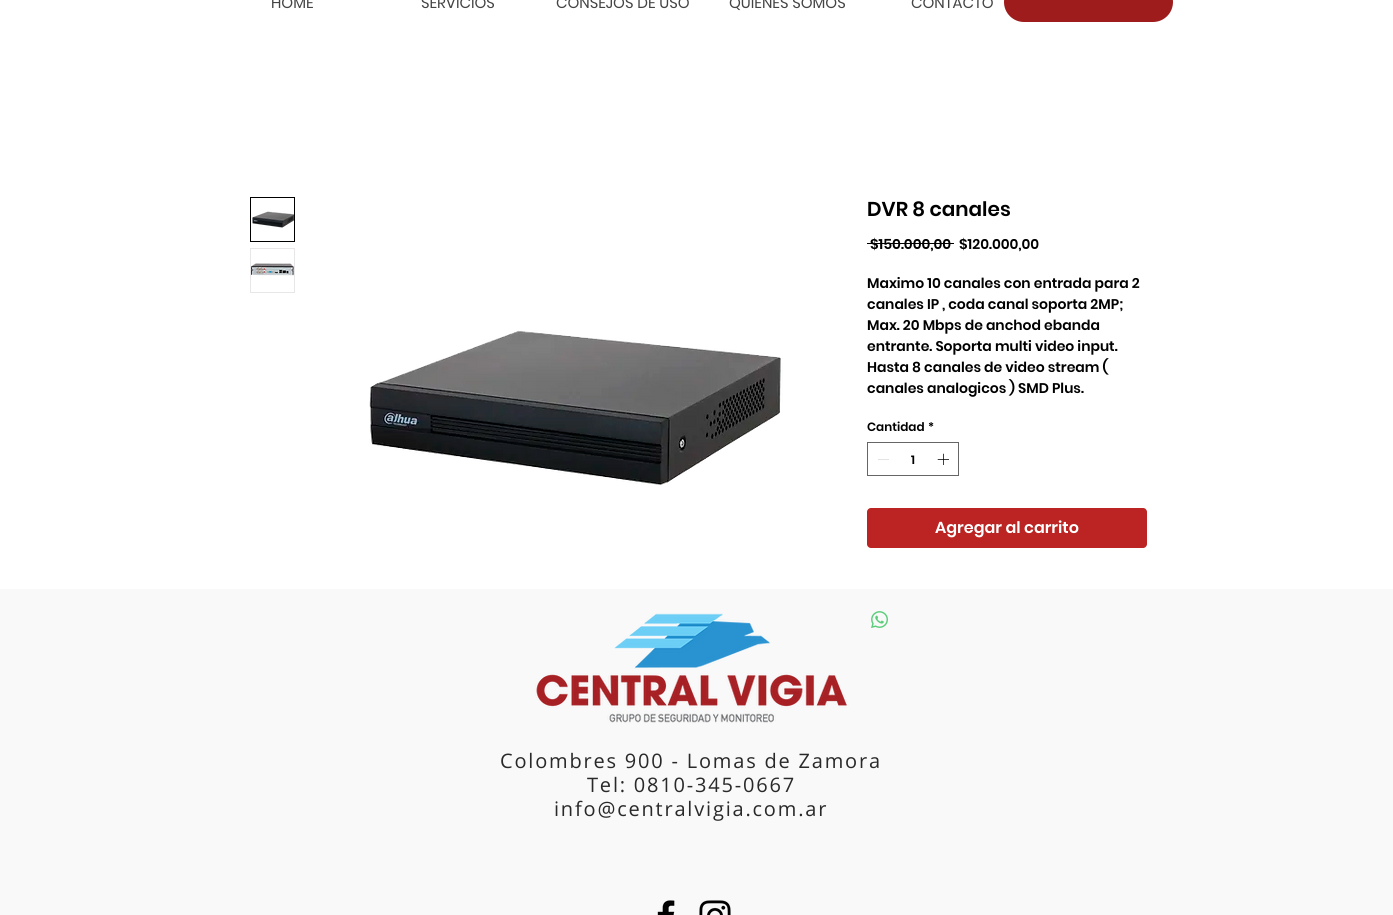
#include <cairo.h>
#include <math.h>
#include <stddef.h>


static void spaced_text(cairo_t *cr, double x, double y, const char *s, double letter, double word) {
    cairo_move_to(cr, x, y);
    while (*s) {
        char ch[5] = {0};
        int n = 0;
        do ch[n++] = *s++; while ((*s & 0xC0) == 0x80);
        cairo_show_text(cr, ch);
        cairo_rel_move_to(cr, letter + word * (*ch == ' '), 0);
    }
}

static void round_rect(cairo_t *cr, double x, double y, double w, double h, double r) {
    cairo_new_sub_path(cr);
    cairo_arc(cr, x + w - r, y + h - r, r, 0, M_PI / 2);
    cairo_arc(cr, x + r, y + h - r, r, M_PI / 2, M_PI);
    cairo_arc(cr, x + r, y + r, r, M_PI, 1.5 * M_PI);
    cairo_arc(cr, x + w - r, y + r, r, 1.5 * M_PI, 2 * M_PI);
    cairo_close_path(cr);
}

static void picture(cairo_t *cr, const char *path, double x, double y, double w, double h) {
    cairo_surface_t *image = cairo_image_surface_create_from_png(path);
    cairo_save(cr);
    cairo_set_source_surface(cr, image, x, y);
    cairo_rectangle(cr, x, y, w, h);
    cairo_fill(cr);
    cairo_restore(cr);
    cairo_surface_destroy(image);
}

int main(void) {
    cairo_surface_t *surface = cairo_image_surface_create(CAIRO_FORMAT_RGB24, 1393, 915);
    cairo_t *cr = cairo_create(surface);
    cairo_font_options_t *options = cairo_font_options_create();
    cairo_font_options_set_hint_metrics(options, CAIRO_HINT_METRICS_OFF);
    cairo_font_options_set_hint_style(options, CAIRO_HINT_STYLE_NONE);
    cairo_set_font_options(cr, options);
    cairo_set_miter_limit(cr, 4);
    cairo_set_source_rgb(cr, 1, 1, 1);
    cairo_paint(cr);
    cairo_set_source_rgb(cr, 0.973, 0.973, 0.973);
    cairo_rectangle(cr, 0, 589, 1393, 326);
    cairo_fill(cr);
    cairo_select_font_face(cr, "Poppins", CAIRO_FONT_SLANT_NORMAL, CAIRO_FONT_WEIGHT_NORMAL);
    cairo_set_font_size(cr, 15);
    cairo_set_source_rgb(cr, 0.267, 0.267, 0.267);
    cairo_move_to(cr, 271, 8);
    cairo_show_text(cr, "HOME");
    cairo_move_to(cr, 421, 8);
    cairo_show_text(cr, "SERVICIOS");
    cairo_move_to(cr, 556, 8);
    cairo_show_text(cr, "CONSEJOS DE USO");
    cairo_move_to(cr, 729, 8);
    cairo_show_text(cr, "QUIENES SOMOS");
    cairo_move_to(cr, 911, 8);
    cairo_show_text(cr, "CONTACTO");
    cairo_set_source_rgb(cr, 0.62, 0.11, 0.11);
    round_rect(cr, 1004, -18, 169, 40, 20);
    cairo_fill(cr);
    cairo_rectangle(cr, 250.5, 197.5, 44, 44);
    cairo_set_source_rgb(cr, 0, 0, 0);
    cairo_set_line_width(cr, 1);
    cairo_stroke(cr);
    picture(cr, "img1.png", 252, 211, 42, 17);
    cairo_rectangle(cr, 250.5, 248.5, 44, 44);
    cairo_set_source_rgb(cr, 0.91, 0.902, 0.902);
    cairo_stroke(cr);
    picture(cr, "img2.png", 251, 263, 43, 13);
    picture(cr, "img3.png", 369, 330, 414, 155);
    cairo_select_font_face(cr, "Poppins SemiBold", CAIRO_FONT_SLANT_NORMAL, CAIRO_FONT_WEIGHT_NORMAL);
    cairo_set_font_size(cr, 20);
    cairo_set_source_rgb(cr, 0, 0, 0);
    cairo_move_to(cr, 867, 216);
    cairo_show_text(cr, "DVR 8 canales");
    cairo_set_font_size(cr, 14);
    cairo_move_to(cr, 870, 249);
    cairo_show_text(cr, "$150.000,00");
    cairo_rectangle(cr, 867, 243, 87, 1);
    cairo_fill(cr);
    cairo_move_to(cr, 959, 249);
    cairo_show_text(cr, "$120.000,00");
    cairo_move_to(cr, 867, 288);
    cairo_show_text(cr, "Maximo 10 canales con entrada para 2");
    cairo_move_to(cr, 867, 309);
    cairo_show_text(cr, "canales IP , coda canal soporta 2MP;");
    cairo_move_to(cr, 867, 330);
    cairo_show_text(cr, "Max. 20 Mbps de anchod ebanda");
    cairo_move_to(cr, 867, 351);
    cairo_show_text(cr, "entrante. Soporta multi video input.");
    cairo_move_to(cr, 867, 372);
    cairo_show_text(cr, "Hasta 8 canales de video stream (");
    cairo_move_to(cr, 867, 393);
    cairo_show_text(cr, "canales analogicos ) SMD Plus.");
    cairo_set_font_size(cr, 12);
    cairo_move_to(cr, 867, 431);
    cairo_show_text(cr, "Cantidad");
    cairo_move_to(cr, 928, 431);
    cairo_show_text(cr, "*");
    cairo_rectangle(cr, 867.5, 442.5, 91, 33);
    cairo_set_source_rgb(cr, 0.4, 0.4, 0.4);
    cairo_stroke(cr);
    cairo_set_source_rgb(cr, 0.89, 0.89, 0.89);
    cairo_rectangle(cr, 878, 459, 11, 1);
    cairo_fill(cr);
    cairo_set_source_rgb(cr, 0, 0, 0);
    cairo_move_to(cr, 911, 464);
    cairo_show_text(cr, "1");
    picture(cr, "img4.png", 937, 453, 12, 12);
    cairo_set_source_rgb(cr, 0.733, 0.141, 0.137);
    round_rect(cr, 867, 508, 280, 40, 4);
    cairo_fill(cr);
    cairo_set_font_size(cr, 16);
    cairo_set_source_rgb(cr, 1, 1, 1);
    cairo_move_to(cr, 935, 533);
    cairo_show_text(cr, "Agregar al carrito");
    picture(cr, "img5.png", 871, 611, 17, 17);
    picture(cr, "img6.png", 535, 613, 314, 110);
    cairo_select_font_face(cr, "Open Sans", CAIRO_FONT_SLANT_NORMAL, CAIRO_FONT_WEIGHT_NORMAL);
    cairo_set_font_size(cr, 20);
    cairo_set_source_rgb(cr, 0.161, 0.161, 0.161);
    spaced_text(cr, 500, 768, "Colombres 900 - Lomas de Zamora", 1.8, 0);
    spaced_text(cr, 587, 792, "Tel: 0810-345-0667", 1.8, 0);
    spaced_text(cr, 554, 816, "info@centralvigia.com.ar", 1.8, 0);
    picture(cr, "img7.png", 657, 900, 18, 15);
    picture(cr, "img8.png", 699, 900, 32, 15);
    cairo_surface_write_to_png(surface, "page.png");
    cairo_font_options_destroy(options);
    cairo_destroy(cr);
    cairo_surface_destroy(surface);
    return 0;
}
